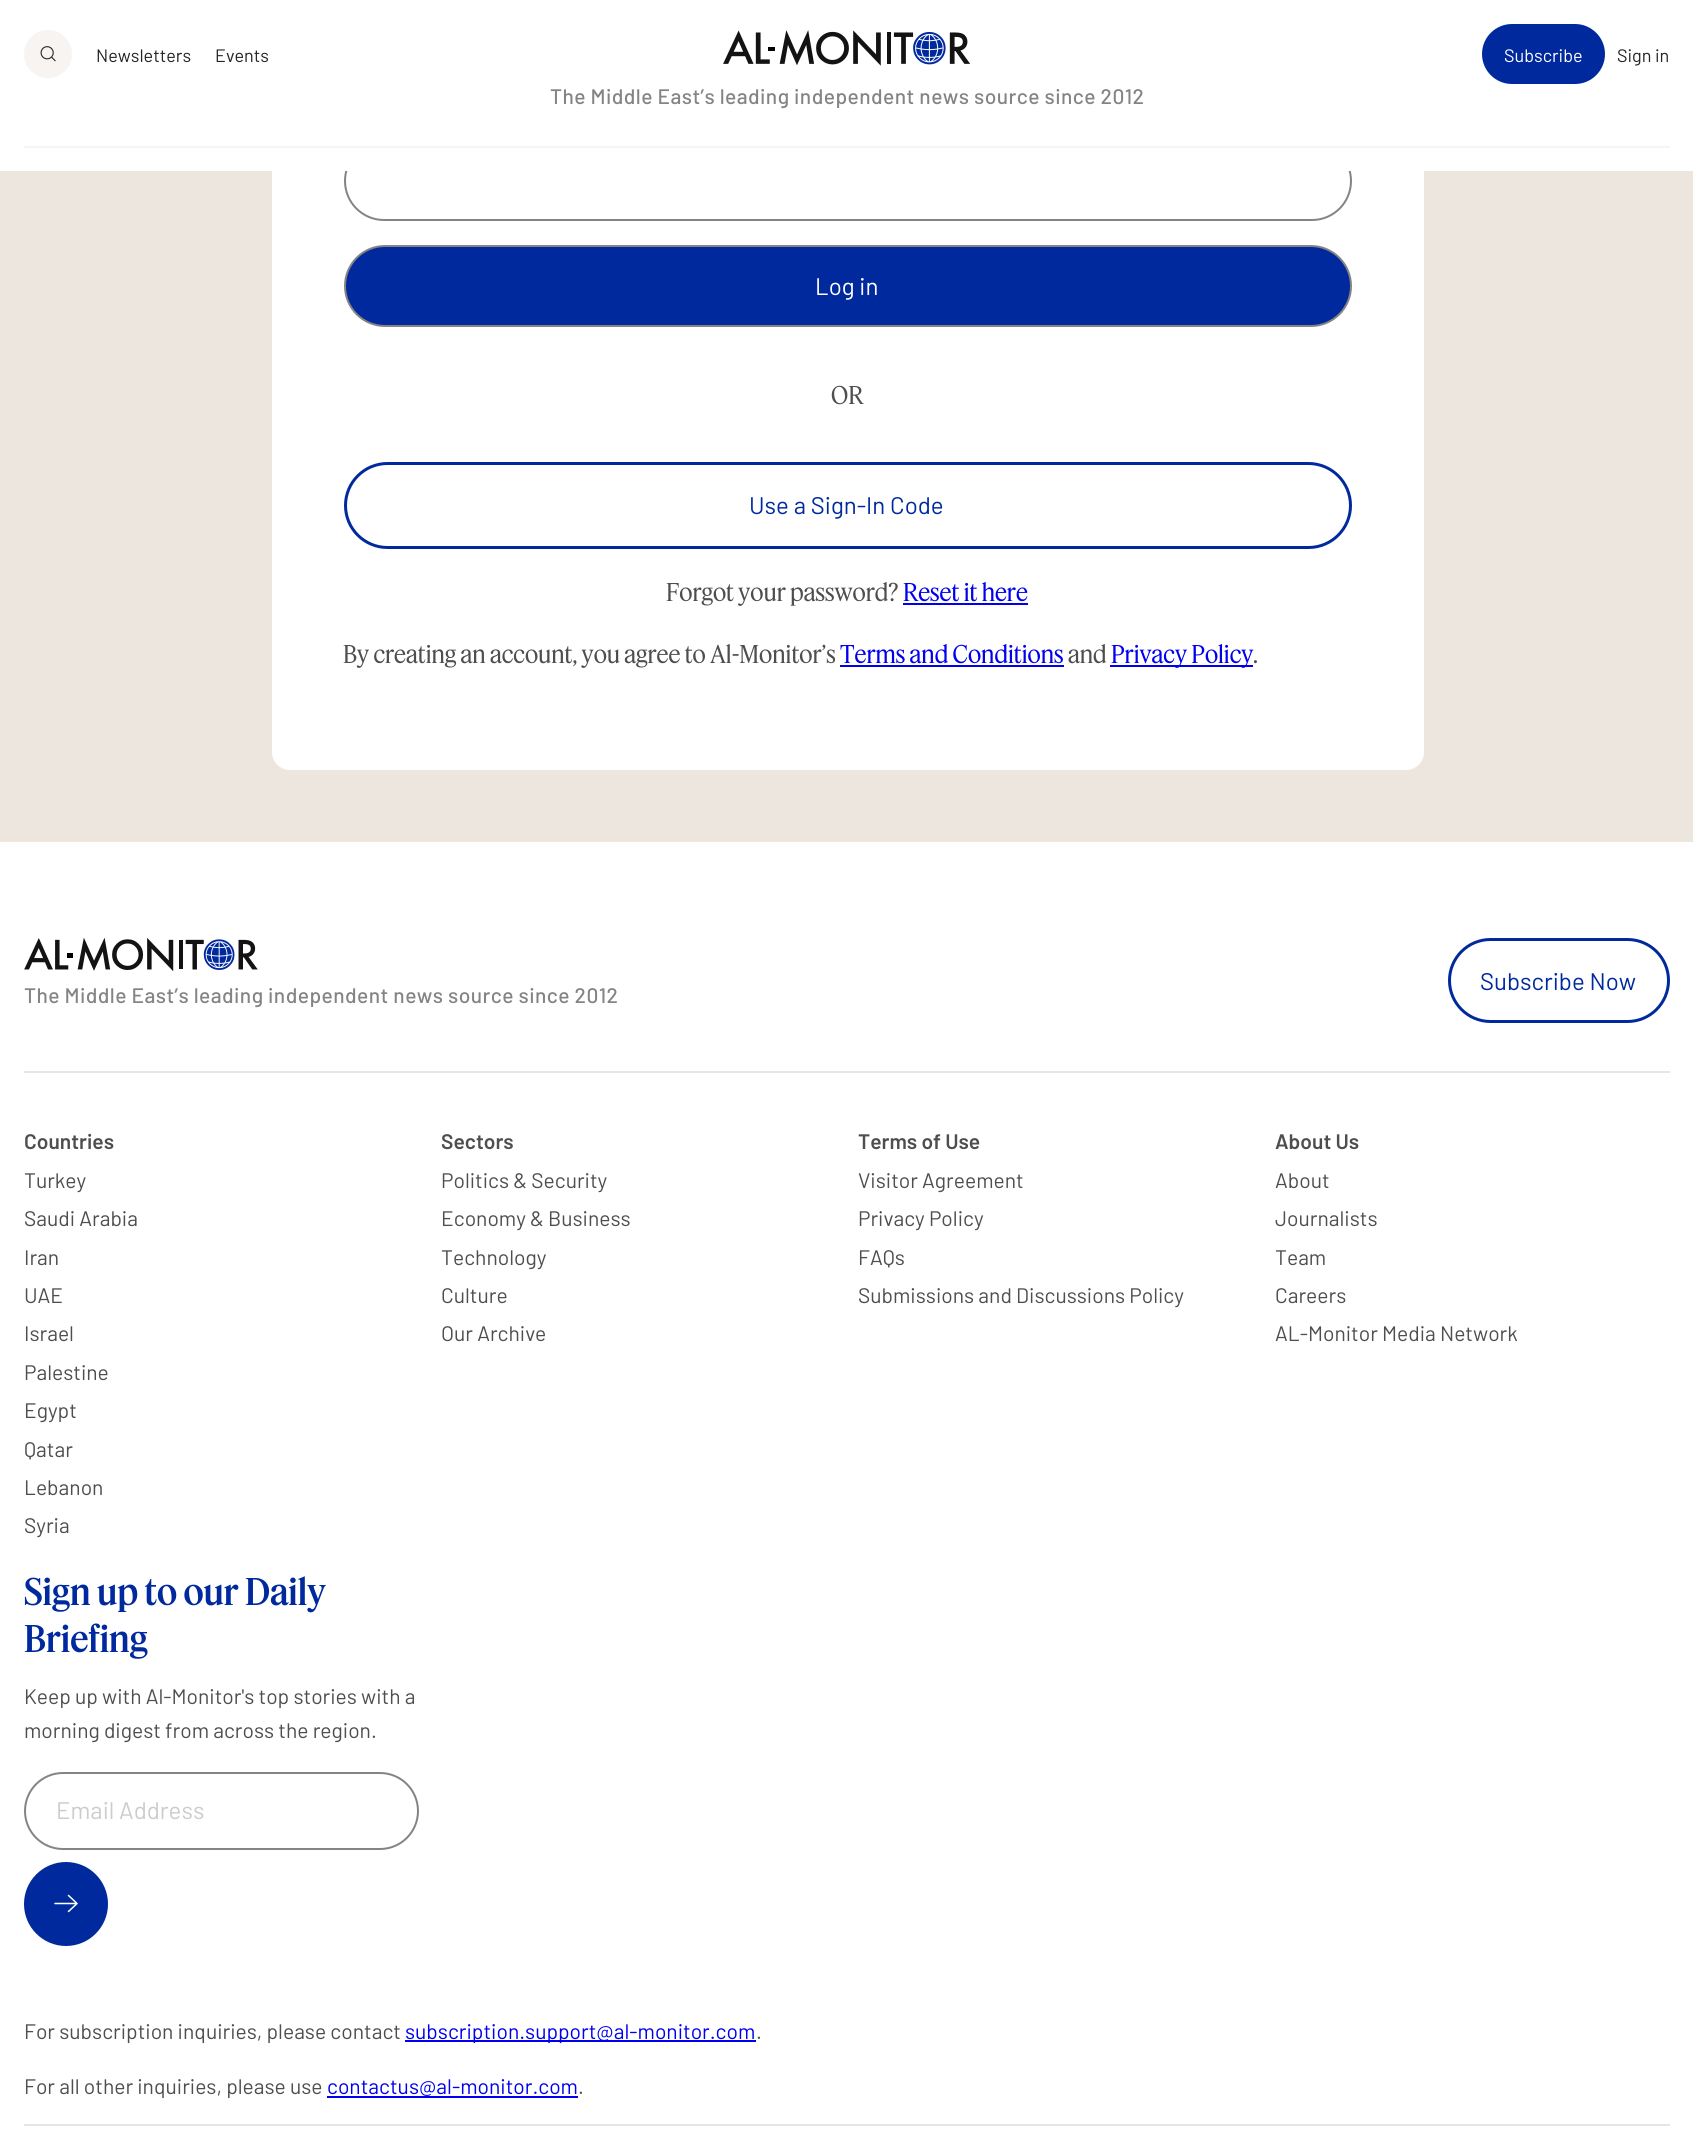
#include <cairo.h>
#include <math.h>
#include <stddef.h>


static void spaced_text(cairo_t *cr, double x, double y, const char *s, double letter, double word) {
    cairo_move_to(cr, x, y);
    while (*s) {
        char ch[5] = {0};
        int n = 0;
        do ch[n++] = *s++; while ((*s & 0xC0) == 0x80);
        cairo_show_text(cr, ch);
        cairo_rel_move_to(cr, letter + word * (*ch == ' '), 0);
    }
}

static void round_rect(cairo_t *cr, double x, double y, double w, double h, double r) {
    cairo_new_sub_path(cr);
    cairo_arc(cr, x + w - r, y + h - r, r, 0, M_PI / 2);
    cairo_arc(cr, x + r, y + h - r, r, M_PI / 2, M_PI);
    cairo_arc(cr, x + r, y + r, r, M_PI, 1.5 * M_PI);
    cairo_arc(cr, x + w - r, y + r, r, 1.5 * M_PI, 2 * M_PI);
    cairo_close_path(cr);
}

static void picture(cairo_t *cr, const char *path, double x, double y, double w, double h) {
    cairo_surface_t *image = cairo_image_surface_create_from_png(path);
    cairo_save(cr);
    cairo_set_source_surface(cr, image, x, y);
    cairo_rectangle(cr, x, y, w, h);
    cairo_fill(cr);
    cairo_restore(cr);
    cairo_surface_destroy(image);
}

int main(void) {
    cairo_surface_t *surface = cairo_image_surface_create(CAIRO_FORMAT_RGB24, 1693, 2155);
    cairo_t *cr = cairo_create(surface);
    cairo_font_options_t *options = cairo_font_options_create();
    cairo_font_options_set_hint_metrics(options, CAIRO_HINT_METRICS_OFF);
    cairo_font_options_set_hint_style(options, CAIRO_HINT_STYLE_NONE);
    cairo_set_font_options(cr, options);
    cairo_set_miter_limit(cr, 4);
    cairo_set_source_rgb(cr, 1, 1, 1);
    cairo_paint(cr);
    round_rect(cr, 1449.5, 939.5, 219, 82, 41);
    cairo_set_source_rgb(cr, 0, 0.161, 0.616);
    cairo_set_line_width(cr, 3);
    cairo_stroke(cr);
    cairo_select_font_face(cr, "Barlow", CAIRO_FONT_SLANT_NORMAL, CAIRO_FONT_WEIGHT_NORMAL);
    cairo_set_font_size(cr, 24);
    cairo_move_to(cr, 1480, 990);
    cairo_show_text(cr, "Subscribe Now");
    picture(cr, "img3.png", 24, 938, 234, 33);
    cairo_select_font_face(cr, "Barlow Medium", CAIRO_FONT_SLANT_NORMAL, CAIRO_FONT_WEIGHT_NORMAL);
    cairo_set_font_size(cr, 21);
    cairo_set_source_rgb(cr, 0.518, 0.518, 0.518);
    spaced_text(cr, 24, 1003, "The Middle Eastʼs leading independent news source since 2012", 0.42, 0);
    cairo_set_source_rgb(cr, 0.898, 0.898, 0.898);
    cairo_rectangle(cr, 24, 1071, 1646, 2);
    cairo_fill(cr);
    cairo_select_font_face(cr, "Barlow SemiBold", CAIRO_FONT_SLANT_NORMAL, CAIRO_FONT_WEIGHT_NORMAL);
    cairo_set_source_rgb(cr, 0.306, 0.306, 0.302);
    cairo_move_to(cr, 24, 1149);
    cairo_show_text(cr, "Countries");
    cairo_select_font_face(cr, "Barlow", CAIRO_FONT_SLANT_NORMAL, CAIRO_FONT_WEIGHT_NORMAL);
    cairo_move_to(cr, 24, 1188);
    cairo_show_text(cr, "Turkey");
    cairo_move_to(cr, 24, 1226);
    cairo_show_text(cr, "Saudi Arabia");
    cairo_move_to(cr, 24, 1265);
    cairo_show_text(cr, "Iran");
    cairo_move_to(cr, 24, 1303);
    cairo_show_text(cr, "UAE");
    cairo_move_to(cr, 24, 1341);
    cairo_show_text(cr, "Israel");
    cairo_move_to(cr, 24, 1380);
    cairo_show_text(cr, "Palestine");
    cairo_move_to(cr, 24, 1418);
    cairo_show_text(cr, "Egypt");
    cairo_move_to(cr, 24, 1457);
    cairo_show_text(cr, "Qatar");
    cairo_move_to(cr, 24, 1495);
    cairo_show_text(cr, "Lebanon");
    cairo_move_to(cr, 24, 1533);
    cairo_show_text(cr, "Syria");
    cairo_select_font_face(cr, "Barlow SemiBold", CAIRO_FONT_SLANT_NORMAL, CAIRO_FONT_WEIGHT_NORMAL);
    cairo_move_to(cr, 441, 1149);
    cairo_show_text(cr, "Sectors");
    cairo_select_font_face(cr, "Barlow", CAIRO_FONT_SLANT_NORMAL, CAIRO_FONT_WEIGHT_NORMAL);
    cairo_move_to(cr, 441, 1188);
    cairo_show_text(cr, "Politics & Security");
    cairo_move_to(cr, 441, 1226);
    cairo_show_text(cr, "Economy & Business");
    cairo_move_to(cr, 441, 1265);
    cairo_show_text(cr, "Technology");
    cairo_move_to(cr, 441, 1303);
    cairo_show_text(cr, "Culture");
    cairo_move_to(cr, 441, 1341);
    cairo_show_text(cr, "Our Archive");
    cairo_select_font_face(cr, "Barlow SemiBold", CAIRO_FONT_SLANT_NORMAL, CAIRO_FONT_WEIGHT_NORMAL);
    cairo_move_to(cr, 858, 1149);
    cairo_show_text(cr, "Terms of Use");
    cairo_select_font_face(cr, "Barlow", CAIRO_FONT_SLANT_NORMAL, CAIRO_FONT_WEIGHT_NORMAL);
    cairo_move_to(cr, 858, 1188);
    cairo_show_text(cr, "Visitor Agreement");
    cairo_move_to(cr, 858, 1226);
    cairo_show_text(cr, "Privacy Policy");
    cairo_move_to(cr, 858, 1265);
    cairo_show_text(cr, "FAQs");
    cairo_move_to(cr, 858, 1303);
    cairo_show_text(cr, "Submissions and Discussions Policy");
    cairo_select_font_face(cr, "Barlow SemiBold", CAIRO_FONT_SLANT_NORMAL, CAIRO_FONT_WEIGHT_NORMAL);
    cairo_move_to(cr, 1275, 1149);
    cairo_show_text(cr, "About Us");
    cairo_select_font_face(cr, "Barlow", CAIRO_FONT_SLANT_NORMAL, CAIRO_FONT_WEIGHT_NORMAL);
    cairo_move_to(cr, 1275, 1188);
    cairo_show_text(cr, "About");
    cairo_move_to(cr, 1275, 1226);
    cairo_show_text(cr, "Journalists");
    cairo_move_to(cr, 1275, 1265);
    cairo_show_text(cr, "Team");
    cairo_move_to(cr, 1275, 1303);
    cairo_show_text(cr, "Careers");
    cairo_move_to(cr, 1275, 1341);
    cairo_show_text(cr, "AL-Monitor Media Network");
    cairo_set_source_rgb(cr, 0.898, 0.898, 0.898);
    cairo_rectangle(cr, 24, 2124, 1646, 2);
    cairo_fill(cr);
    cairo_set_source_rgb(cr, 0.306, 0.306, 0.302);
    cairo_move_to(cr, 24, 2039);
    cairo_show_text(cr, "For subscription inquiries, please contact");
    cairo_set_source_rgb(cr, 0, 0, 0.933);
    cairo_rectangle(cr, 405, 2040, 351, 2);
    cairo_fill(cr);
    cairo_move_to(cr, 405, 2039);
    cairo_show_text(cr, "subscription.support@al-monitor.com");
    cairo_set_source_rgb(cr, 0.306, 0.306, 0.302);
    cairo_move_to(cr, 756, 2039);
    cairo_show_text(cr, ".");
    cairo_move_to(cr, 24, 2094);
    cairo_show_text(cr, "For all other inquiries, please use");
    cairo_set_source_rgb(cr, 0, 0, 0.933);
    cairo_move_to(cr, 327, 2094);
    cairo_show_text(cr, "contactus@al-monitor.com");
    cairo_rectangle(cr, 327, 2096, 251, 2);
    cairo_fill(cr);
    cairo_set_source_rgb(cr, 0.306, 0.306, 0.302);
    cairo_move_to(cr, 578, 2094);
    cairo_show_text(cr, ".");
    cairo_save(cr);
    cairo_rectangle(cr, 0, 0, 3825, 842);
    cairo_clip(cr);
    cairo_rectangle(cr, -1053, -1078, 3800, 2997);
    cairo_set_source_rgb(cr, 0.925, 0.902, 0.875);
    cairo_set_line_width(cr, 2156);
    cairo_stroke(cr);
    cairo_restore(cr);
    cairo_set_source_rgb(cr, 0.925, 0.902, 0.875);
    cairo_rectangle(cr, 25, 171, 1644, 670);
    cairo_fill(cr);
    cairo_set_source_rgb(cr, 1, 1, 1);
    round_rect(cr, 272, -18, 1152, 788, 18);
    cairo_fill(cr);
    round_rect(cr, 345, 142, 1006, 78, 39);
    cairo_set_source_rgb(cr, 0.518, 0.518, 0.518);
    cairo_set_line_width(cr, 2);
    cairo_stroke(cr);
    cairo_set_source_rgb(cr, 1, 1, 1);
    cairo_rectangle(cr, 0, 0, 1693, 171);
    cairo_fill(cr);
    cairo_set_source_rgb(cr, 0.965, 0.957, 0.945);
    cairo_arc(cr, 48, 54, 24, 0, 2 * M_PI);
    cairo_fill(cr);
    picture(cr, "img1.png", 40, 46, 16, 16);
    cairo_set_font_size(cr, 18);
    cairo_set_source_rgb(cr, 0.141, 0.141, 0.141);
    cairo_move_to(cr, 96, 62);
    cairo_show_text(cr, "Newsletters");
    cairo_move_to(cr, 215, 62);
    cairo_show_text(cr, "Events");
    picture(cr, "img2.png", 723, 30, 248, 36);
    cairo_set_source_rgb(cr, 0, 0.161, 0.616);
    round_rect(cr, 1482, 24, 123, 60, 30);
    cairo_fill(cr);
    cairo_set_source_rgb(cr, 1, 1, 1);
    cairo_move_to(cr, 1504, 62);
    cairo_show_text(cr, "Subscribe");
    cairo_set_source_rgb(cr, 0.141, 0.141, 0.141);
    cairo_move_to(cr, 1617, 62);
    cairo_show_text(cr, "Sign in");
    cairo_set_source_rgb(cr, 0.965, 0.957, 0.945);
    cairo_rectangle(cr, 24, 146, 1646, 2);
    cairo_fill(cr);
    cairo_select_font_face(cr, "Barlow Medium", CAIRO_FONT_SLANT_NORMAL, CAIRO_FONT_WEIGHT_NORMAL);
    cairo_set_font_size(cr, 21);
    cairo_set_source_rgb(cr, 0.518, 0.518, 0.518);
    spaced_text(cr, 550, 104, "The Middle Eastʼs leading independent news source since 2012", 0.42, 0);
    cairo_set_source_rgb(cr, 0, 0.161, 0.616);
    round_rect(cr, 345, 246, 1006, 80, 40);
    cairo_fill_preserve(cr);
    cairo_set_source_rgb(cr, 0.518, 0.518, 0.518);
    cairo_stroke(cr);
    cairo_select_font_face(cr, "Barlow", CAIRO_FONT_SLANT_NORMAL, CAIRO_FONT_WEIGHT_NORMAL);
    cairo_set_font_size(cr, 24);
    cairo_set_source_rgb(cr, 1, 1, 1);
    cairo_move_to(cr, 815, 295);
    cairo_show_text(cr, "Log in");
    cairo_select_font_face(cr, "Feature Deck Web", CAIRO_FONT_SLANT_NORMAL, CAIRO_FONT_WEIGHT_NORMAL);
    cairo_set_source_rgb(cr, 0.306, 0.306, 0.302);
    cairo_move_to(cr, 831, 404);
    cairo_show_text(cr, "OR");
    round_rect(cr, 345.5, 463.5, 1005, 84, 42);
    cairo_set_source_rgb(cr, 0, 0.161, 0.616);
    cairo_set_line_width(cr, 3);
    cairo_stroke(cr);
    cairo_select_font_face(cr, "Barlow", CAIRO_FONT_SLANT_NORMAL, CAIRO_FONT_WEIGHT_NORMAL);
    cairo_move_to(cr, 749, 514);
    cairo_show_text(cr, "Use a Sign-In Code");
    cairo_select_font_face(cr, "Feature Deck Web", CAIRO_FONT_SLANT_NORMAL, CAIRO_FONT_WEIGHT_NORMAL);
    cairo_set_source_rgb(cr, 0.306, 0.306, 0.302);
    cairo_move_to(cr, 666, 601);
    cairo_show_text(cr, "Forgot your password?");
    cairo_set_source_rgb(cr, 0, 0, 0.933);
    cairo_move_to(cr, 903, 601);
    cairo_show_text(cr, "Reset it here");
    cairo_rectangle(cr, 903, 603, 125, 2);
    cairo_fill(cr);
    cairo_set_source_rgb(cr, 0.306, 0.306, 0.302);
    cairo_move_to(cr, 343, 663);
    cairo_show_text(cr, "By creating an account, you agree to Al-Monitor’s");
    cairo_set_source_rgb(cr, 0, 0, 0.933);
    cairo_move_to(cr, 840, 663);
    cairo_show_text(cr, "Terms and Conditions");
    cairo_rectangle(cr, 840, 665, 224, 2);
    cairo_fill(cr);
    cairo_set_source_rgb(cr, 0.306, 0.306, 0.302);
    cairo_move_to(cr, 1068, 663);
    cairo_show_text(cr, "and");
    cairo_set_source_rgb(cr, 0, 0, 0.933);
    cairo_rectangle(cr, 1110, 665, 143, 2);
    cairo_fill(cr);
    cairo_move_to(cr, 1111, 663);
    cairo_show_text(cr, "Privacy Policy");
    cairo_set_source_rgb(cr, 0.306, 0.306, 0.302);
    cairo_move_to(cr, 1253, 663);
    cairo_show_text(cr, ".");
    cairo_select_font_face(cr, "Feature Deck Web Medium", CAIRO_FONT_SLANT_NORMAL, CAIRO_FONT_WEIGHT_NORMAL);
    cairo_set_font_size(cr, 36);
    cairo_set_source_rgb(cr, 0, 0.161, 0.616);
    cairo_move_to(cr, 24, 1605);
    cairo_show_text(cr, "Sign up to our Daily");
    cairo_move_to(cr, 24, 1652);
    cairo_show_text(cr, "Briefing");
    cairo_select_font_face(cr, "Barlow", CAIRO_FONT_SLANT_NORMAL, CAIRO_FONT_WEIGHT_NORMAL);
    cairo_set_font_size(cr, 21);
    cairo_set_source_rgb(cr, 0.306, 0.306, 0.302);
    cairo_move_to(cr, 24, 1704);
    cairo_show_text(cr, "Keep up with Al-Monitor's top stories with a");
    cairo_move_to(cr, 24, 1738);
    cairo_show_text(cr, "morning digest from across the region.");
    round_rect(cr, 25, 1773, 393, 76, 38);
    cairo_set_source_rgb(cr, 0.518, 0.518, 0.518);
    cairo_set_line_width(cr, 2);
    cairo_stroke(cr);
    cairo_set_font_size(cr, 24);
    cairo_set_source_rgb(cr, 0.8, 0.8, 0.8);
    cairo_move_to(cr, 56, 1819);
    cairo_show_text(cr, "Email Address");
    cairo_set_source_rgb(cr, 0, 0.161, 0.616);
    cairo_new_path(cr);
    cairo_arc(cr, 66, 1904, 42, 0, 2 * M_PI);
    cairo_fill(cr);
    cairo_new_path(cr);
    cairo_move_to(cr, 68.5, 1895.5);
    cairo_line_to(cr, 77, 1903.5);
    cairo_line_to(cr, 68.5, 1911.5);
    cairo_move_to(cr, 76.5, 1903.5);
    cairo_line_to(cr, 55, 1903.5);
    cairo_set_source_rgb(cr, 1, 1, 1);
    cairo_set_line_width(cr, 1.5);
    cairo_set_line_cap(cr, CAIRO_LINE_CAP_ROUND);
    cairo_set_line_join(cr, CAIRO_LINE_JOIN_ROUND);
    cairo_stroke(cr);
    cairo_surface_write_to_png(surface, "page.png");
    cairo_font_options_destroy(options);
    cairo_destroy(cr);
    cairo_surface_destroy(surface);
    return 0;
}
